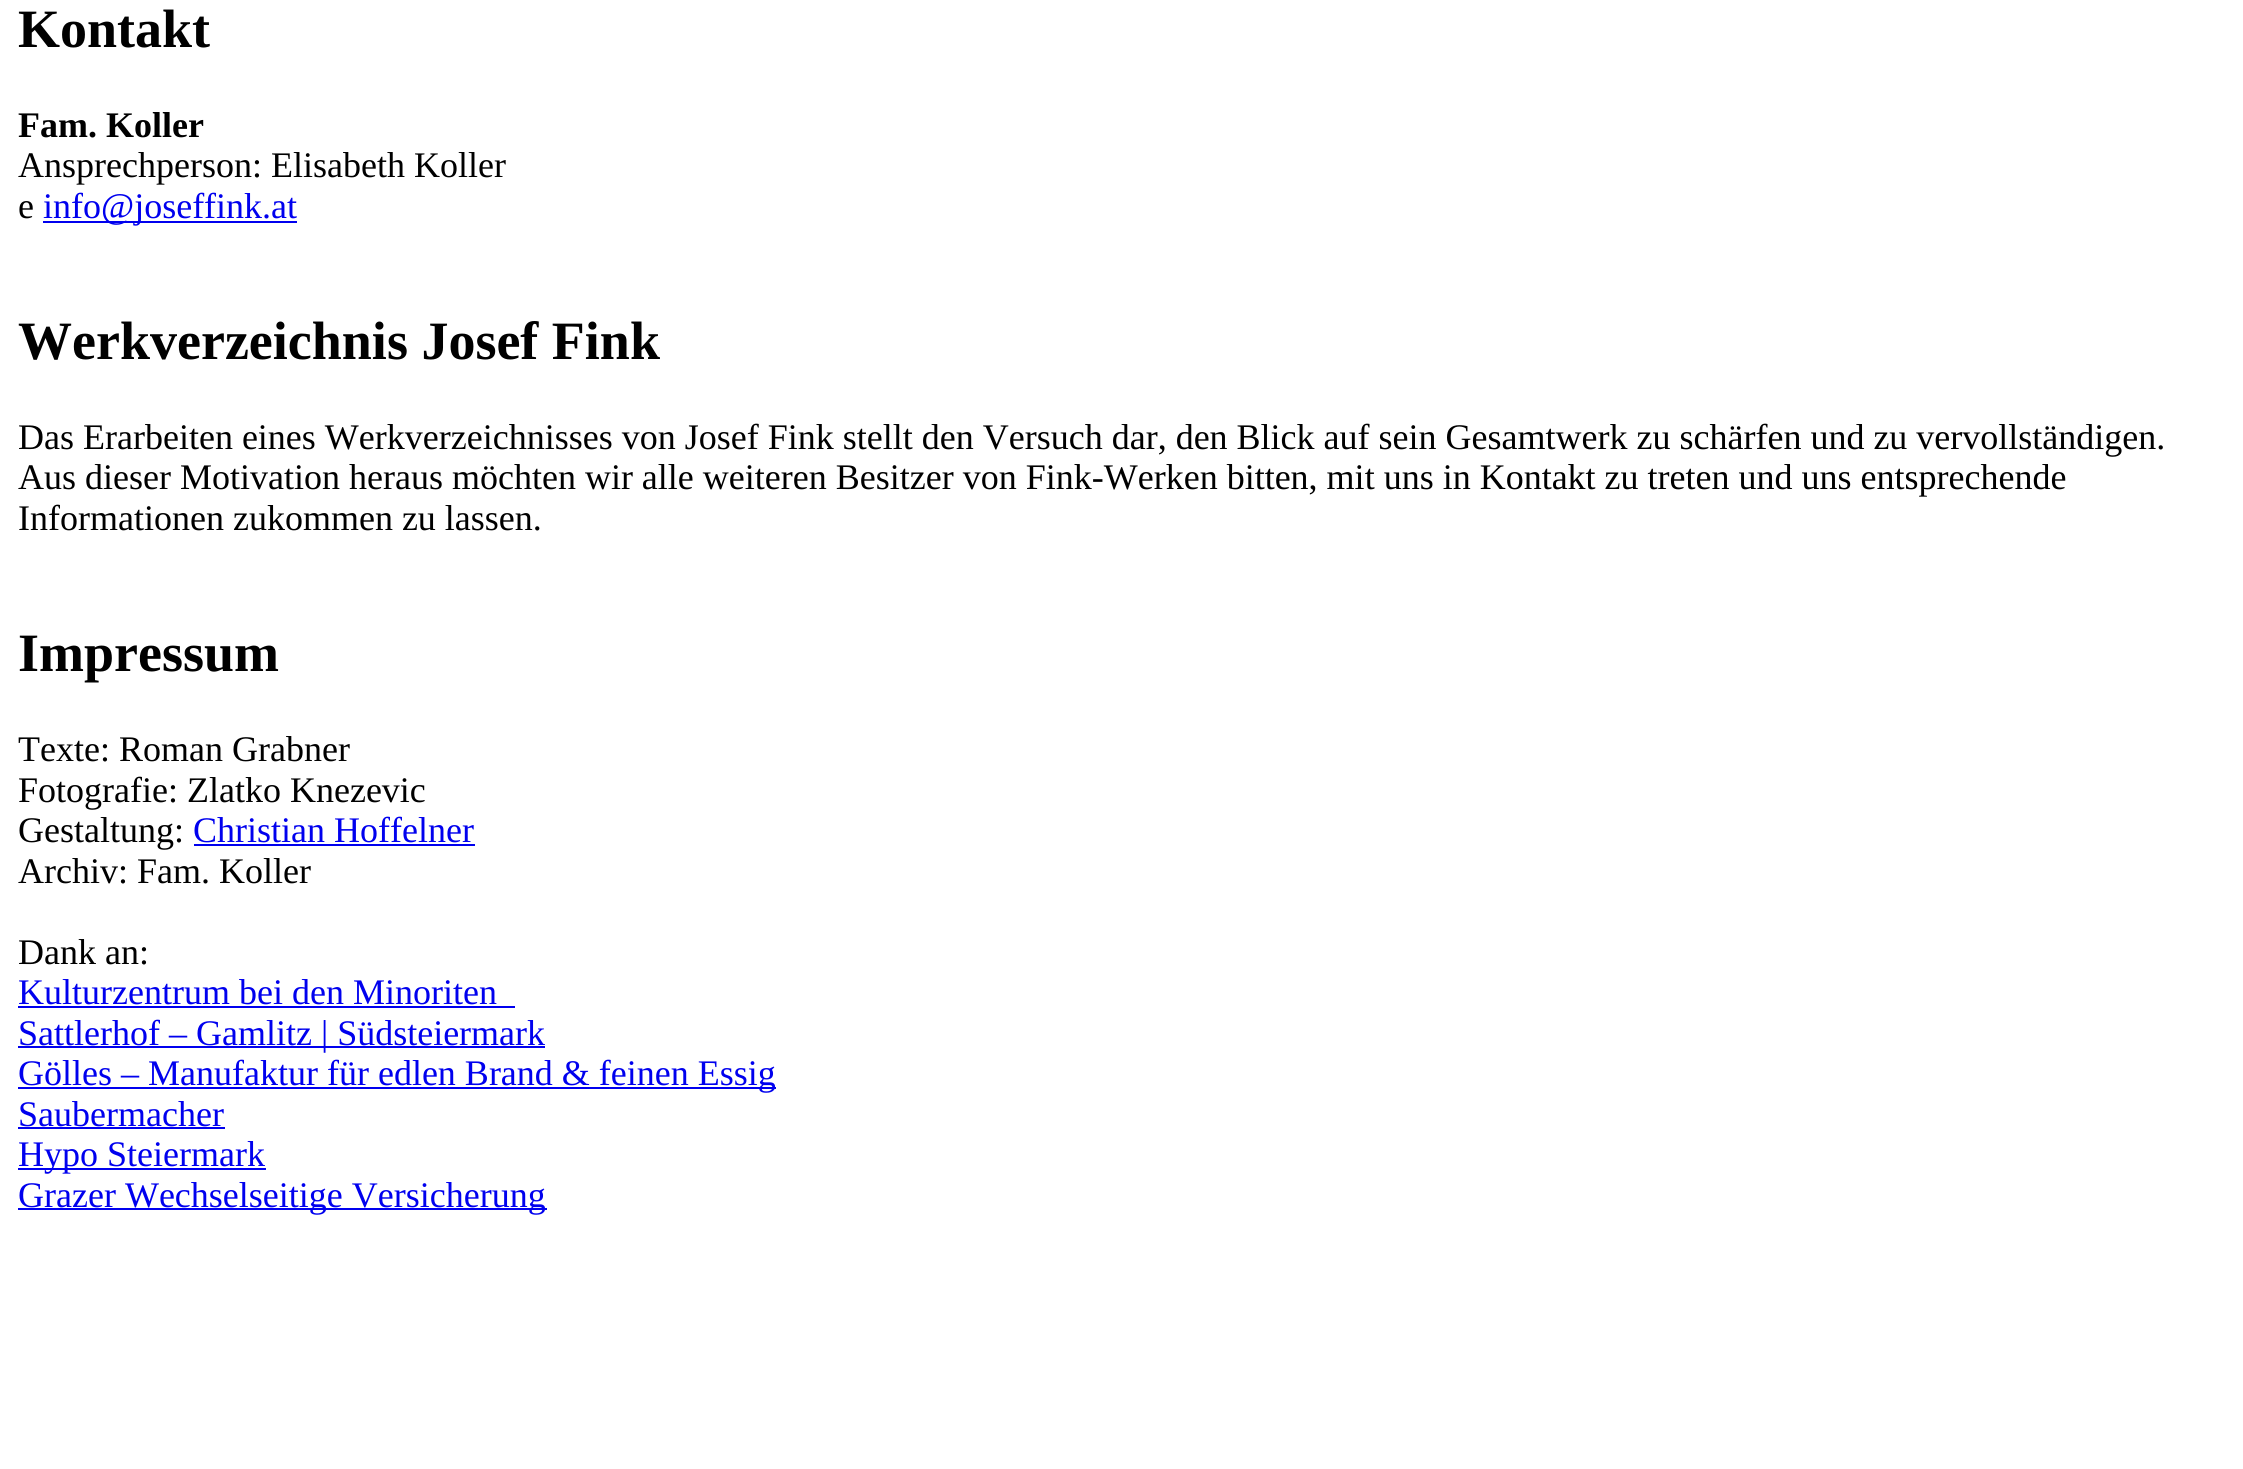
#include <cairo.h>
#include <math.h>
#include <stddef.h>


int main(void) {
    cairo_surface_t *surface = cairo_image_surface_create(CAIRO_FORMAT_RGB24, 2243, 1469);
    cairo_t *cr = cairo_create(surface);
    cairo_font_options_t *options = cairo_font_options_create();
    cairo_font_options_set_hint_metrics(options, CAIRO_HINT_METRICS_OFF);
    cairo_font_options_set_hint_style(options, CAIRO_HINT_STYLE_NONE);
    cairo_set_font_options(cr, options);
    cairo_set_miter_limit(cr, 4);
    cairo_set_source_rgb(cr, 1, 1, 1);
    cairo_paint(cr);
    cairo_select_font_face(cr, "Liberation Serif", CAIRO_FONT_SLANT_NORMAL, CAIRO_FONT_WEIGHT_BOLD);
    cairo_set_font_size(cr, 54);
    cairo_set_source_rgb(cr, 0, 0, 0);
    cairo_move_to(cr, 18, 47);
    cairo_show_text(cr, "Kontakt");
    cairo_set_font_size(cr, 36);
    cairo_move_to(cr, 18, 137);
    cairo_show_text(cr, "Fam. Koller");
    cairo_select_font_face(cr, "Liberation Serif", CAIRO_FONT_SLANT_NORMAL, CAIRO_FONT_WEIGHT_NORMAL);
    cairo_move_to(cr, 18, 177);
    cairo_show_text(cr, "Ansprechperson: Elisabeth Koller");
    cairo_move_to(cr, 18, 218);
    cairo_show_text(cr, "e");
    cairo_set_source_rgb(cr, 0, 0, 0.933);
    cairo_rectangle(cr, 43, 221, 254, 2);
    cairo_fill(cr);
    cairo_move_to(cr, 43, 218);
    cairo_show_text(cr, "info@joseffink.at");
    cairo_select_font_face(cr, "Liberation Serif", CAIRO_FONT_SLANT_NORMAL, CAIRO_FONT_WEIGHT_BOLD);
    cairo_set_font_size(cr, 54);
    cairo_set_source_rgb(cr, 0, 0, 0);
    cairo_move_to(cr, 18, 359);
    cairo_show_text(cr, "Werkverzeichnis Josef Fink");
    cairo_select_font_face(cr, "Liberation Serif", CAIRO_FONT_SLANT_NORMAL, CAIRO_FONT_WEIGHT_NORMAL);
    cairo_set_font_size(cr, 36);
    cairo_move_to(cr, 18, 449);
    cairo_show_text(cr, "Das Erarbeiten eines Werkverzeichnisses von Josef Fink stellt den Versuch dar, den Blick auf sein Gesamtwerk zu schärfen und zu vervollständigen.");
    cairo_move_to(cr, 18, 489);
    cairo_show_text(cr, "Aus dieser Motivation heraus möchten wir alle weiteren Besitzer von Fink-Werken bitten, mit uns in Kontakt zu treten und uns entsprechende");
    cairo_move_to(cr, 18, 530);
    cairo_show_text(cr, "Informationen zukommen zu lassen.");
    cairo_select_font_face(cr, "Liberation Serif", CAIRO_FONT_SLANT_NORMAL, CAIRO_FONT_WEIGHT_BOLD);
    cairo_set_font_size(cr, 54);
    cairo_move_to(cr, 18, 671);
    cairo_show_text(cr, "Impressum");
    cairo_select_font_face(cr, "Liberation Serif", CAIRO_FONT_SLANT_NORMAL, CAIRO_FONT_WEIGHT_NORMAL);
    cairo_set_font_size(cr, 36);
    cairo_move_to(cr, 18, 761);
    cairo_show_text(cr, "Texte: Roman Grabner");
    cairo_move_to(cr, 18, 802);
    cairo_show_text(cr, "Fotografie: Zlatko Knezevic");
    cairo_move_to(cr, 18, 842);
    cairo_show_text(cr, "Gestaltung:");
    cairo_set_source_rgb(cr, 0, 0, 0.933);
    cairo_move_to(cr, 193, 842);
    cairo_show_text(cr, "Christian Hoffelner");
    cairo_rectangle(cr, 194, 844, 281, 2);
    cairo_fill(cr);
    cairo_set_source_rgb(cr, 0, 0, 0);
    cairo_move_to(cr, 18, 883);
    cairo_show_text(cr, "Archiv: Fam. Koller");
    cairo_move_to(cr, 18, 964);
    cairo_show_text(cr, "Dank an:");
    cairo_set_source_rgb(cr, 0, 0, 0.933);
    cairo_move_to(cr, 18, 1004);
    cairo_show_text(cr, "Kulturzentrum bei den Minoriten");
    cairo_rectangle(cr, 18, 1006, 497, 2);
    cairo_fill(cr);
    cairo_rectangle(cr, 18, 1046, 527, 2);
    cairo_fill(cr);
    cairo_move_to(cr, 18, 1045);
    cairo_show_text(cr, "Sattlerhof – Gamlitz | Südsteiermark");
    cairo_rectangle(cr, 18, 1087, 758, 2);
    cairo_fill(cr);
    cairo_move_to(cr, 18, 1085);
    cairo_show_text(cr, "Gölles – Manufaktur für edlen Brand & feinen Essig");
    cairo_move_to(cr, 18, 1126);
    cairo_show_text(cr, "Saubermacher");
    cairo_rectangle(cr, 18, 1127, 207, 2);
    cairo_fill(cr);
    cairo_rectangle(cr, 18, 1168, 248, 2);
    cairo_fill(cr);
    cairo_move_to(cr, 18, 1166);
    cairo_show_text(cr, "Hypo Steiermark");
    cairo_rectangle(cr, 18, 1208, 529, 2);
    cairo_fill(cr);
    cairo_move_to(cr, 18, 1207);
    cairo_show_text(cr, "Grazer Wechselseitige Versicherung");
    cairo_surface_write_to_png(surface, "page.png");
    cairo_font_options_destroy(options);
    cairo_destroy(cr);
    cairo_surface_destroy(surface);
    return 0;
}
